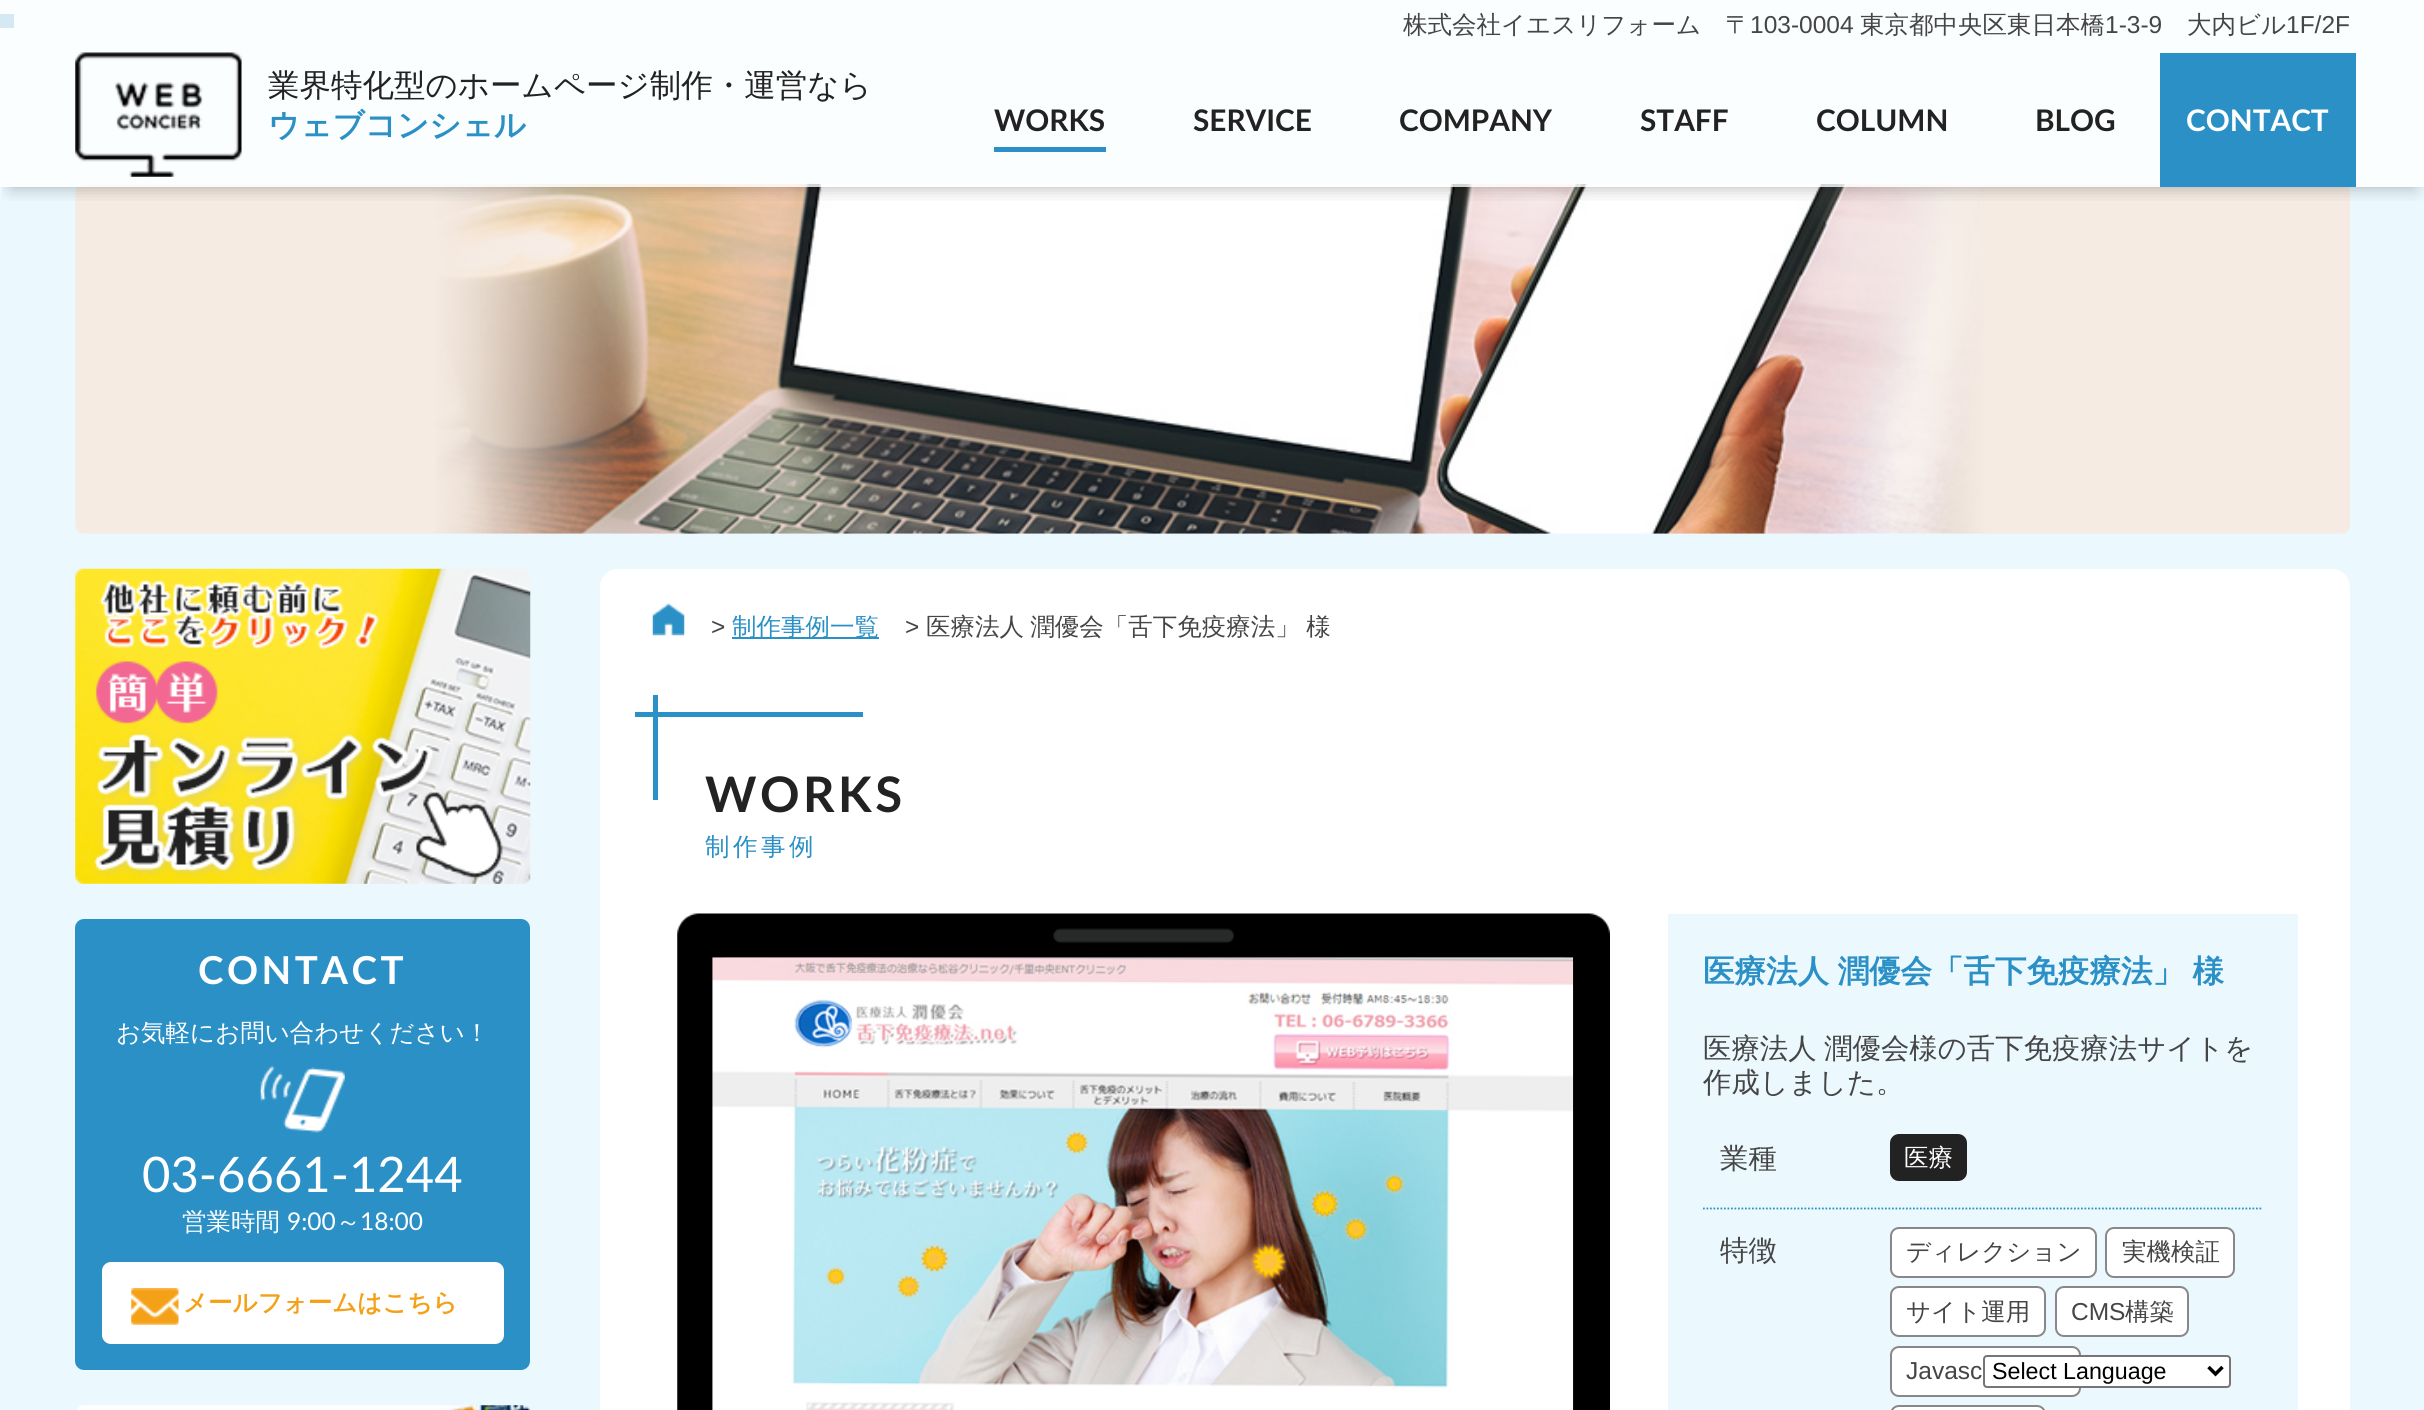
#include <cairo.h>
#include <math.h>
#include <stddef.h>


static void spaced_text(cairo_t *cr, double x, double y, const char *s, double letter, double word) {
    cairo_move_to(cr, x, y);
    while (*s) {
        char ch[5] = {0};
        int n = 0;
        do ch[n++] = *s++; while ((*s & 0xC0) == 0x80);
        cairo_show_text(cr, ch);
        cairo_rel_move_to(cr, letter + word * (*ch == ' '), 0);
    }
}

static void round_rect(cairo_t *cr, double x, double y, double w, double h, double r) {
    cairo_new_sub_path(cr);
    cairo_arc(cr, x + w - r, y + h - r, r, 0, M_PI / 2);
    cairo_arc(cr, x + r, y + h - r, r, M_PI / 2, M_PI);
    cairo_arc(cr, x + r, y + r, r, M_PI, 1.5 * M_PI);
    cairo_arc(cr, x + w - r, y + r, r, 1.5 * M_PI, 2 * M_PI);
    cairo_close_path(cr);
}

static void shadow(cairo_t *cr, double x, double y, double w, double h, double r, double blur, double alpha) {
    cairo_push_group_with_content(cr, CAIRO_CONTENT_ALPHA);
    cairo_set_operator(cr, CAIRO_OPERATOR_SOURCE);
    for (int i = 15; i >= -15 && fmin(w, h) + blur * i / 3 > 0; i -= 2) {
        double e = blur * i / 6;
        cairo_set_source_rgba(cr, 0, 0, 0, alpha * erfc((i - 1) / 8.5) / 2);
        round_rect(cr, x - e, y - e, w + 2 * e, h + 2 * e, fmax(0, fmin(r + e + blur * .6, fmin(w, h) / 2 + e)));
        cairo_fill(cr);
    }
    cairo_pattern_t *soft = cairo_pop_group(cr);
    cairo_mask(cr, soft);
    cairo_pattern_destroy(soft);
}

static void picture(cairo_t *cr, const char *path, double x, double y, double w, double h) {
    cairo_surface_t *image = cairo_image_surface_create_from_png(path);
    cairo_save(cr);
    cairo_set_source_surface(cr, image, x, y);
    cairo_rectangle(cr, x, y, w, h);
    cairo_fill(cr);
    cairo_restore(cr);
    cairo_surface_destroy(image);
}

int main(void) {
    cairo_surface_t *surface = cairo_image_surface_create(CAIRO_FORMAT_RGB24, 2424, 1410);
    cairo_t *cr = cairo_create(surface);
    cairo_font_options_t *options = cairo_font_options_create();
    cairo_font_options_set_hint_metrics(options, CAIRO_HINT_METRICS_OFF);
    cairo_font_options_set_hint_style(options, CAIRO_HINT_STYLE_NONE);
    cairo_set_font_options(cr, options);
    cairo_set_miter_limit(cr, 4);
    cairo_set_source_rgb(cr, 0.918, 0.969, 0.996);
    cairo_paint(cr);
    picture(cr, "img2.png", 75, 183, 2275, 351);
    cairo_set_source_rgb(cr, 0.169, 0.565, 0.776);
    cairo_rectangle(cr, 0, 14, 14, 14);
    cairo_fill(cr);
    cairo_save(cr);
    cairo_rectangle(cr, 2, 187, 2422, 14);
    cairo_clip(cr);
    cairo_set_source_rgb(cr, 0, 0, 0);
    shadow(cr, 11, 21, 2404, 166, 0, 9, 0.3);
    cairo_restore(cr);
    cairo_set_source_rgba(cr, 1, 1, 1, 0.8);
    cairo_rectangle(cr, 0, 0, 2424, 187);
    cairo_fill(cr);
    cairo_select_font_face(cr, "WenQuanYi Zen Hei Medium", CAIRO_FONT_SLANT_NORMAL, CAIRO_FONT_WEIGHT_NORMAL);
    cairo_set_font_size(cr, 24.5);
    cairo_set_source_rgb(cr, 0.271, 0.271, 0.271);
    cairo_move_to(cr, 1403, 33);
    cairo_show_text(cr, "株式会社イエスリフォーム　〒");
    cairo_select_font_face(cr, "Liberation Sans", CAIRO_FONT_SLANT_NORMAL, CAIRO_FONT_WEIGHT_NORMAL);
    cairo_move_to(cr, 1750, 33);
    cairo_show_text(cr, "103-0004");
    cairo_select_font_face(cr, "WenQuanYi Zen Hei Medium", CAIRO_FONT_SLANT_NORMAL, CAIRO_FONT_WEIGHT_NORMAL);
    cairo_move_to(cr, 1860, 33);
    cairo_show_text(cr, "東京都中央区東日本橋");
    cairo_select_font_face(cr, "Liberation Sans", CAIRO_FONT_SLANT_NORMAL, CAIRO_FONT_WEIGHT_NORMAL);
    cairo_move_to(cr, 2105, 33);
    cairo_show_text(cr, "1-3-9");
    cairo_select_font_face(cr, "WenQuanYi Zen Hei Medium", CAIRO_FONT_SLANT_NORMAL, CAIRO_FONT_WEIGHT_NORMAL);
    cairo_move_to(cr, 2187, 33);
    cairo_show_text(cr, "大内ビル");
    cairo_select_font_face(cr, "Liberation Sans", CAIRO_FONT_SLANT_NORMAL, CAIRO_FONT_WEIGHT_NORMAL);
    cairo_move_to(cr, 2286, 33);
    cairo_show_text(cr, "1F/2F");
    picture(cr, "img1.png", 75, 52, 167, 125);
    cairo_select_font_face(cr, "WenQuanYi Zen Hei Medium", CAIRO_FONT_SLANT_NORMAL, CAIRO_FONT_WEIGHT_NORMAL);
    cairo_set_font_size(cr, 31.5);
    cairo_set_source_rgb(cr, 0.133, 0.133, 0.133);
    cairo_move_to(cr, 268, 96);
    cairo_show_text(cr, "業界特化型のホームページ制作・運営なら");
    cairo_select_font_face(cr, "WenQuanYi Zen Hei", CAIRO_FONT_SLANT_NORMAL, CAIRO_FONT_WEIGHT_BOLD);
    cairo_set_source_rgb(cr, 0.169, 0.565, 0.776);
    cairo_move_to(cr, 268, 136);
    cairo_show_text(cr, "ウェブコンシェル");
    cairo_select_font_face(cr, "Lato", CAIRO_FONT_SLANT_NORMAL, CAIRO_FONT_WEIGHT_BOLD);
    cairo_set_font_size(cr, 29.75);
    cairo_set_source_rgb(cr, 0.133, 0.133, 0.133);
    cairo_move_to(cr, 994, 131);
    cairo_show_text(cr, "WORKS");
    cairo_set_source_rgb(cr, 0.169, 0.565, 0.776);
    cairo_rectangle(cr, 994, 147, 112, 5);
    cairo_fill(cr);
    cairo_set_source_rgb(cr, 0.133, 0.133, 0.133);
    cairo_move_to(cr, 1193, 131);
    cairo_show_text(cr, "SERVICE");
    cairo_move_to(cr, 1399, 131);
    cairo_show_text(cr, "COMPANY");
    cairo_move_to(cr, 1640, 131);
    cairo_show_text(cr, "STAFF");
    cairo_move_to(cr, 1816, 131);
    cairo_show_text(cr, "COLUMN");
    cairo_move_to(cr, 2035, 131);
    cairo_show_text(cr, "BLOG");
    cairo_set_source_rgb(cr, 0.169, 0.565, 0.776);
    cairo_rectangle(cr, 2160, 53, 196, 134);
    cairo_fill(cr);
    cairo_set_source_rgb(cr, 1, 1, 1);
    cairo_move_to(cr, 2186, 131);
    cairo_show_text(cr, "CONTACT");
    picture(cr, "img3.png", 75, 568, 456, 316);
    cairo_set_source_rgb(cr, 0.169, 0.565, 0.776);
    round_rect(cr, 75, 919, 455, 451, 9);
    cairo_fill(cr);
    cairo_set_font_size(cr, 38.5);
    cairo_set_source_rgb(cr, 1, 1, 1);
    spaced_text(cr, 198, 984, "CONTACT", 3.5, 0);
    cairo_select_font_face(cr, "WenQuanYi Zen Hei Medium", CAIRO_FONT_SLANT_NORMAL, CAIRO_FONT_WEIGHT_NORMAL);
    cairo_set_font_size(cr, 24.5);
    cairo_move_to(cr, 116, 1041);
    cairo_show_text(cr, "お気軽にお問い合わせください！");
    picture(cr, "img4.png", 260, 1065, 85, 68);
    cairo_select_font_face(cr, "Lato", CAIRO_FONT_SLANT_NORMAL, CAIRO_FONT_WEIGHT_NORMAL);
    cairo_set_font_size(cr, 49);
    cairo_move_to(cr, 142, 1192);
    cairo_show_text(cr, "03-6661-1244");
    cairo_select_font_face(cr, "WenQuanYi Zen Hei Medium", CAIRO_FONT_SLANT_NORMAL, CAIRO_FONT_WEIGHT_NORMAL);
    cairo_set_font_size(cr, 24.5);
    cairo_move_to(cr, 182, 1230);
    cairo_show_text(cr, "営業時間");
    cairo_select_font_face(cr, "Lato", CAIRO_FONT_SLANT_NORMAL, CAIRO_FONT_WEIGHT_NORMAL);
    cairo_move_to(cr, 287, 1230);
    cairo_show_text(cr, "9:00");
    cairo_select_font_face(cr, "WenQuanYi Zen Hei Medium", CAIRO_FONT_SLANT_NORMAL, CAIRO_FONT_WEIGHT_NORMAL);
    cairo_move_to(cr, 336, 1230);
    cairo_show_text(cr, "～");
    cairo_select_font_face(cr, "Lato", CAIRO_FONT_SLANT_NORMAL, CAIRO_FONT_WEIGHT_NORMAL);
    cairo_move_to(cr, 360, 1230);
    cairo_show_text(cr, "18:00");
    round_rect(cr, 102, 1262, 402, 82, 9);
    cairo_fill(cr);
    picture(cr, "img5.png", 131, 1288, 48, 37);
    cairo_select_font_face(cr, "WenQuanYi Zen Hei", CAIRO_FONT_SLANT_NORMAL, CAIRO_FONT_WEIGHT_BOLD);
    cairo_set_source_rgb(cr, 0.957, 0.631, 0.094);
    cairo_move_to(cr, 183, 1311);
    cairo_show_text(cr, "メールフォームはこちら");
    picture(cr, "img6.png", 75, 1405, 456, 5);
    cairo_set_source_rgb(cr, 1, 1, 1);
    round_rect(cr, 600, 569, 1750, 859, 18);
    cairo_fill(cr);
    picture(cr, "img7.png", 652, 603, 33, 33);
    cairo_select_font_face(cr, "Liberation Sans", CAIRO_FONT_SLANT_NORMAL, CAIRO_FONT_WEIGHT_NORMAL);
    cairo_set_source_rgb(cr, 0.271, 0.271, 0.271);
    cairo_move_to(cr, 711, 635);
    cairo_show_text(cr, ">");
    cairo_set_source_rgb(cr, 0.169, 0.565, 0.776);
    cairo_rectangle(cr, 732, 637, 147, 2);
    cairo_fill(cr);
    cairo_select_font_face(cr, "WenQuanYi Zen Hei Medium", CAIRO_FONT_SLANT_NORMAL, CAIRO_FONT_WEIGHT_NORMAL);
    cairo_move_to(cr, 732, 635);
    cairo_show_text(cr, "制作事例一覧");
    cairo_select_font_face(cr, "Liberation Sans", CAIRO_FONT_SLANT_NORMAL, CAIRO_FONT_WEIGHT_NORMAL);
    cairo_set_source_rgb(cr, 0.271, 0.271, 0.271);
    cairo_move_to(cr, 905, 635);
    cairo_show_text(cr, ">");
    cairo_select_font_face(cr, "WenQuanYi Zen Hei Medium", CAIRO_FONT_SLANT_NORMAL, CAIRO_FONT_WEIGHT_NORMAL);
    spaced_text(cr, 926, 635, "医療法人 潤優会「舌下免疫療法」 様", 0, -1);
    cairo_set_source_rgb(cr, 0.169, 0.565, 0.776);
    cairo_rectangle(cr, 653, 695, 5, 105);
    cairo_fill(cr);
    cairo_rectangle(cr, 635, 712, 228, 5);
    cairo_fill(cr);
    cairo_select_font_face(cr, "Lato", CAIRO_FONT_SLANT_NORMAL, CAIRO_FONT_WEIGHT_BOLD);
    cairo_set_font_size(cr, 49);
    cairo_set_source_rgb(cr, 0.133, 0.133, 0.133);
    spaced_text(cr, 705, 812, "WORKS", 3.5, 0);
    cairo_select_font_face(cr, "WenQuanYi Zen Hei Medium", CAIRO_FONT_SLANT_NORMAL, CAIRO_FONT_WEIGHT_NORMAL);
    cairo_set_font_size(cr, 24.5);
    cairo_set_source_rgb(cr, 0.169, 0.565, 0.776);
    spaced_text(cr, 705, 855, "制作事例", 3.5, 0);
    picture(cr, "img8.png", 677, 913, 933, 497);
    picture(cr, "img9.png", 712, 957, 862, 453);
    cairo_set_source_rgb(cr, 0.918, 0.969, 0.996);
    cairo_rectangle(cr, 1668, 914, 630, 496);
    cairo_fill(cr);
    cairo_select_font_face(cr, "WenQuanYi Zen Hei", CAIRO_FONT_SLANT_NORMAL, CAIRO_FONT_WEIGHT_BOLD);
    cairo_set_font_size(cr, 31.5);
    cairo_set_source_rgb(cr, 0.169, 0.565, 0.776);
    spaced_text(cr, 1703, 982, "医療法人 潤優会「舌下免疫療法」 様", 0, -1);
    cairo_select_font_face(cr, "WenQuanYi Zen Hei Medium", CAIRO_FONT_SLANT_NORMAL, CAIRO_FONT_WEIGHT_NORMAL);
    cairo_set_font_size(cr, 28.4);
    cairo_set_source_rgb(cr, 0.271, 0.271, 0.271);
    spaced_text(cr, 1703, 1058, "医療法人 潤優会様の舌下免疫療法サイトを", 0, -1);
    cairo_move_to(cr, 1703, 1092);
    cairo_show_text(cr, "作成しました。");
    cairo_new_path(cr);
    cairo_move_to(cr, 1703, 1208.5);
    cairo_line_to(cr, 2263, 1208.5);
    cairo_set_source_rgb(cr, 0.169, 0.565, 0.776);
    cairo_set_line_width(cr, 1.8);
    cairo_set_dash(cr, (double[]){1.75, 1.75}, 2, 0);
    cairo_stroke(cr);
    cairo_set_source_rgb(cr, 0.271, 0.271, 0.271);
    cairo_move_to(cr, 1720, 1168);
    cairo_show_text(cr, "業種");
    cairo_set_source_rgb(cr, 0.133, 0.133, 0.133);
    round_rect(cr, 1890, 1134, 77, 47, 9);
    cairo_fill(cr);
    cairo_set_font_size(cr, 24.5);
    cairo_set_source_rgb(cr, 1, 1, 1);
    cairo_move_to(cr, 1904, 1166);
    cairo_show_text(cr, "医療");
    cairo_set_font_size(cr, 28.4);
    cairo_set_source_rgb(cr, 0.271, 0.271, 0.271);
    cairo_move_to(cr, 1720, 1260);
    cairo_show_text(cr, "特徴");
    cairo_set_source_rgb(cr, 1, 1, 1);
    round_rect(cr, 1891, 1228, 205, 49, 8);
    cairo_fill_preserve(cr);
    cairo_set_source_rgb(cr, 0.533, 0.533, 0.533);
    cairo_set_line_width(cr, 2);
    cairo_set_dash(cr, NULL, 0, 0);
    cairo_stroke(cr);
    cairo_set_font_size(cr, 24.5);
    cairo_set_source_rgb(cr, 0.271, 0.271, 0.271);
    cairo_move_to(cr, 1906, 1260);
    cairo_show_text(cr, "ディレクション");
    cairo_set_source_rgb(cr, 1, 1, 1);
    round_rect(cr, 2106, 1228, 128, 49, 8);
    cairo_fill_preserve(cr);
    cairo_set_source_rgb(cr, 0.533, 0.533, 0.533);
    cairo_stroke(cr);
    cairo_set_source_rgb(cr, 0.271, 0.271, 0.271);
    cairo_move_to(cr, 2122, 1260);
    cairo_show_text(cr, "実機検証");
    cairo_set_source_rgb(cr, 1, 1, 1);
    round_rect(cr, 1891, 1287, 154, 49, 8);
    cairo_fill_preserve(cr);
    cairo_set_source_rgb(cr, 0.533, 0.533, 0.533);
    cairo_stroke(cr);
    cairo_set_source_rgb(cr, 0.271, 0.271, 0.271);
    cairo_move_to(cr, 1906, 1320);
    cairo_show_text(cr, "サイト運用");
    cairo_set_source_rgb(cr, 1, 1, 1);
    round_rect(cr, 2056, 1287, 132, 49, 8);
    cairo_fill_preserve(cr);
    cairo_set_source_rgb(cr, 0.533, 0.533, 0.533);
    cairo_stroke(cr);
    cairo_select_font_face(cr, "Liberation Sans", CAIRO_FONT_SLANT_NORMAL, CAIRO_FONT_WEIGHT_NORMAL);
    cairo_set_source_rgb(cr, 0.271, 0.271, 0.271);
    cairo_move_to(cr, 2071, 1320);
    cairo_show_text(cr, "CMS");
    cairo_select_font_face(cr, "WenQuanYi Zen Hei Medium", CAIRO_FONT_SLANT_NORMAL, CAIRO_FONT_WEIGHT_NORMAL);
    cairo_move_to(cr, 2125, 1320);
    cairo_show_text(cr, "構築");
    cairo_set_source_rgb(cr, 1, 1, 1);
    round_rect(cr, 1891, 1347, 189, 49, 8);
    cairo_fill_preserve(cr);
    cairo_set_source_rgb(cr, 0.533, 0.533, 0.533);
    cairo_stroke(cr);
    cairo_select_font_face(cr, "Liberation Sans", CAIRO_FONT_SLANT_NORMAL, CAIRO_FONT_WEIGHT_NORMAL);
    cairo_set_source_rgb(cr, 0.271, 0.271, 0.271);
    cairo_move_to(cr, 1906, 1379);
    cairo_show_text(cr, "Javasc");
    cairo_set_source_rgb(cr, 1, 1, 1);
    round_rect(cr, 1891, 1406, 154, 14, 8);
    cairo_fill_preserve(cr);
    cairo_set_source_rgb(cr, 0.533, 0.533, 0.533);
    cairo_stroke(cr);
    cairo_set_source_rgb(cr, 1, 1, 1);
    round_rect(cr, 1984, 1356, 246, 31, 3);
    cairo_fill_preserve(cr);
    cairo_set_source_rgb(cr, 0.463, 0.463, 0.463);
    cairo_stroke(cr);
    cairo_new_path(cr);
    cairo_move_to(cr, 2208.5, 1367);
    cairo_line_to(cr, 2215.5, 1374);
    cairo_line_to(cr, 2222.5, 1367);
    cairo_set_source_rgb(cr, 0, 0, 0);
    cairo_set_line_width(cr, 3.5);
    cairo_stroke(cr);
    cairo_set_font_size(cr, 23.25);
    cairo_move_to(cr, 1992, 1379);
    cairo_show_text(cr, "Select Language");
    cairo_surface_write_to_png(surface, "page.png");
    cairo_font_options_destroy(options);
    cairo_destroy(cr);
    cairo_surface_destroy(surface);
    return 0;
}
